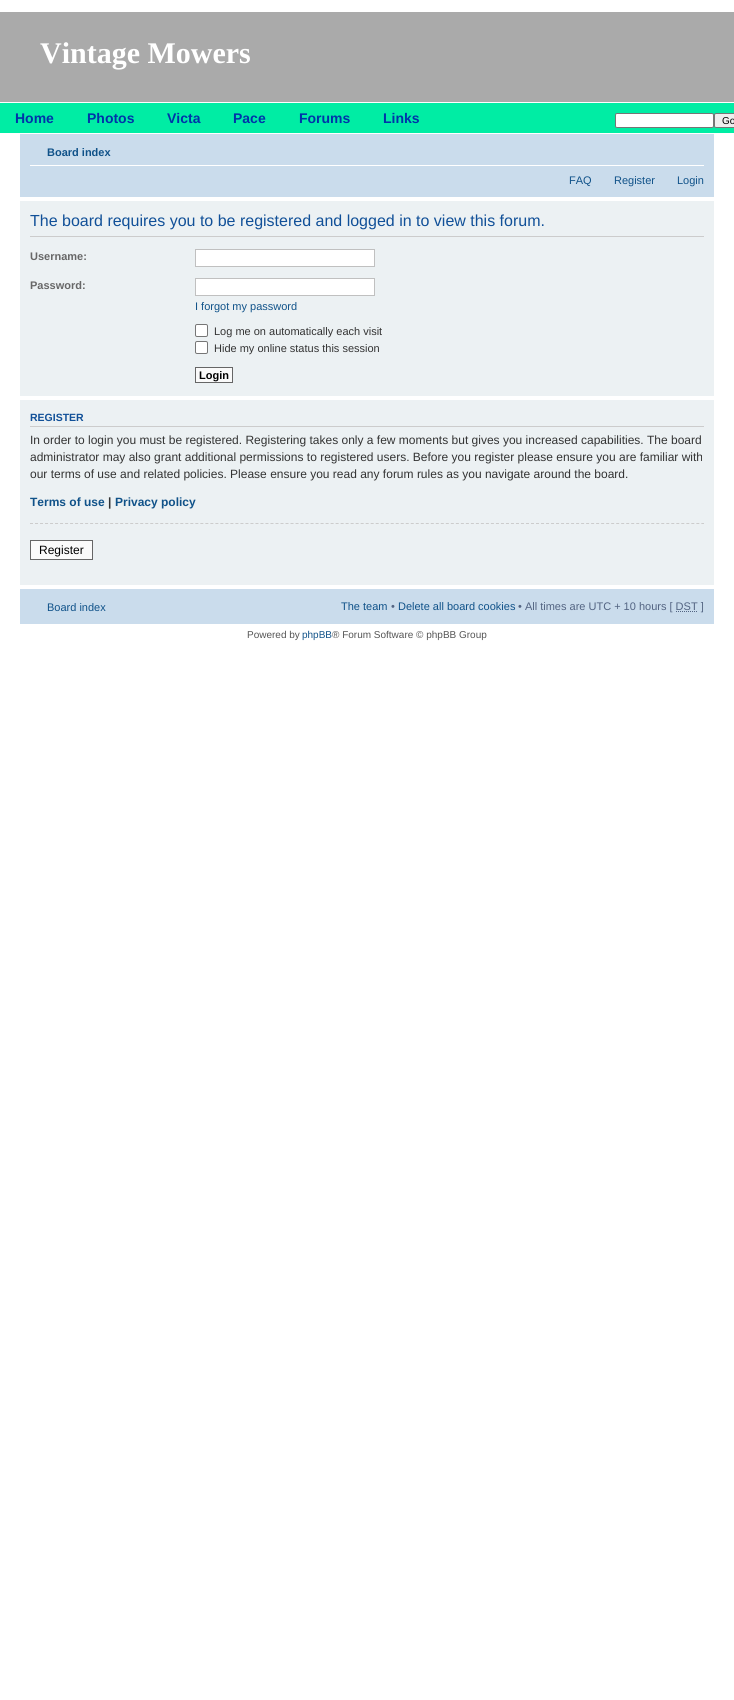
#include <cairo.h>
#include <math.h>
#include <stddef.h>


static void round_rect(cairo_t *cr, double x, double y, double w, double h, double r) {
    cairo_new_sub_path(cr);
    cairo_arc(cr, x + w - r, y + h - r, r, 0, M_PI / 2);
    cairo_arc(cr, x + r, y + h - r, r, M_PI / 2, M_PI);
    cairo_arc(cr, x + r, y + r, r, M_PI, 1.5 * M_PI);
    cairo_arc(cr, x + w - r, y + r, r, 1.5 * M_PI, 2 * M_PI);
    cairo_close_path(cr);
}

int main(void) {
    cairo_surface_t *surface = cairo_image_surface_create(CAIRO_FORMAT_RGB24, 734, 1700);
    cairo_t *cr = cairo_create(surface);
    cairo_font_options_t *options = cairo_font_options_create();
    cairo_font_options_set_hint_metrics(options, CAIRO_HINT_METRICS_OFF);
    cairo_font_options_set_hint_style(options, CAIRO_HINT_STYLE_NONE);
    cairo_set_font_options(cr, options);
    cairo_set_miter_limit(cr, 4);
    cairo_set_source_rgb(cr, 1, 1, 1);
    cairo_paint(cr);
    cairo_set_source_rgb(cr, 0.667, 0.667, 0.667);
    cairo_rectangle(cr, 0, 12, 734, 90);
    cairo_fill(cr);
    cairo_select_font_face(cr, "Liberation Serif", CAIRO_FONT_SLANT_NORMAL, CAIRO_FONT_WEIGHT_BOLD);
    cairo_set_font_size(cr, 30);
    cairo_set_source_rgb(cr, 1, 1, 1);
    cairo_move_to(cr, 40, 63);
    cairo_show_text(cr, "Vintage Mowers");
    cairo_set_source_rgb(cr, 0, 0.929, 0.643);
    cairo_rectangle(cr, 0, 103, 734, 30);
    cairo_fill(cr);
    cairo_select_font_face(cr, "Liberation Sans", CAIRO_FONT_SLANT_NORMAL, CAIRO_FONT_WEIGHT_BOLD);
    cairo_set_font_size(cr, 14);
    cairo_set_source_rgb(cr, 0, 0.2, 0.667);
    cairo_move_to(cr, 15, 123);
    cairo_show_text(cr, "Home");
    cairo_move_to(cr, 87, 123);
    cairo_show_text(cr, "Photos");
    cairo_move_to(cr, 167, 123);
    cairo_show_text(cr, "Victa");
    cairo_move_to(cr, 233, 123);
    cairo_show_text(cr, "Pace");
    cairo_move_to(cr, 299, 123);
    cairo_show_text(cr, "Forums");
    cairo_move_to(cr, 383, 123);
    cairo_show_text(cr, "Links");
    cairo_set_source_rgb(cr, 1, 1, 1);
    round_rect(cr, 615.5, 113.5, 98, 14, 1.5);
    cairo_fill_preserve(cr);
    cairo_set_source_rgb(cr, 0.463, 0.463, 0.463);
    cairo_set_line_width(cr, 1);
    cairo_stroke(cr);
    cairo_set_source_rgb(cr, 0.937, 0.937, 0.937);
    round_rect(cr, 714.5, 113.5, 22, 14, 1.5);
    cairo_fill_preserve(cr);
    cairo_set_source_rgb(cr, 0.463, 0.463, 0.463);
    cairo_stroke(cr);
    cairo_select_font_face(cr, "Liberation Sans", CAIRO_FONT_SLANT_NORMAL, CAIRO_FONT_WEIGHT_NORMAL);
    cairo_set_font_size(cr, 10);
    cairo_set_source_rgb(cr, 0, 0, 0);
    cairo_move_to(cr, 722, 124);
    cairo_show_text(cr, "Go");
    cairo_set_source_rgb(cr, 0.792, 0.863, 0.922);
    cairo_rectangle(cr, 20, 134, 694, 63);
    cairo_fill(cr);
    cairo_set_source_rgb(cr, 1, 1, 1);
    cairo_rectangle(cr, 30, 165, 674, 1);
    cairo_fill(cr);
    cairo_select_font_face(cr, "Liberation Sans", CAIRO_FONT_SLANT_NORMAL, CAIRO_FONT_WEIGHT_BOLD);
    cairo_set_font_size(cr, 11);
    cairo_set_source_rgb(cr, 0.063, 0.322, 0.537);
    cairo_move_to(cr, 47, 156);
    cairo_show_text(cr, "Board index");
    cairo_select_font_face(cr, "Liberation Sans", CAIRO_FONT_SLANT_NORMAL, CAIRO_FONT_WEIGHT_NORMAL);
    cairo_move_to(cr, 569, 184);
    cairo_show_text(cr, "FAQ");
    cairo_move_to(cr, 614, 184);
    cairo_show_text(cr, "Register");
    cairo_move_to(cr, 677, 184);
    cairo_show_text(cr, "Login");
    cairo_set_source_rgb(cr, 0.925, 0.945, 0.953);
    cairo_rectangle(cr, 20, 201, 694, 195);
    cairo_fill(cr);
    cairo_set_source_rgb(cr, 0.8, 0.8, 0.8);
    cairo_rectangle(cr, 30, 236, 674, 1);
    cairo_fill(cr);
    cairo_set_font_size(cr, 16);
    cairo_set_source_rgb(cr, 0.067, 0.314, 0.596);
    cairo_move_to(cr, 30, 226);
    cairo_show_text(cr, "The board requires you to be registered and logged in to view this forum.");
    cairo_select_font_face(cr, "Liberation Sans", CAIRO_FONT_SLANT_NORMAL, CAIRO_FONT_WEIGHT_BOLD);
    cairo_set_font_size(cr, 11);
    cairo_set_source_rgb(cr, 0.404, 0.404, 0.404);
    cairo_move_to(cr, 30, 260);
    cairo_show_text(cr, "Username:");
    cairo_set_source_rgb(cr, 1, 1, 1);
    cairo_rectangle(cr, 195.5, 249.5, 179, 17);
    cairo_fill_preserve(cr);
    cairo_set_source_rgb(cr, 0.753, 0.753, 0.753);
    cairo_stroke(cr);
    cairo_set_source_rgb(cr, 0.404, 0.404, 0.404);
    cairo_move_to(cr, 30, 289);
    cairo_show_text(cr, "Password:");
    cairo_set_source_rgb(cr, 1, 1, 1);
    cairo_rectangle(cr, 195.5, 278.5, 179, 17);
    cairo_fill_preserve(cr);
    cairo_set_source_rgb(cr, 0.753, 0.753, 0.753);
    cairo_stroke(cr);
    cairo_select_font_face(cr, "Liberation Sans", CAIRO_FONT_SLANT_NORMAL, CAIRO_FONT_WEIGHT_NORMAL);
    cairo_set_source_rgb(cr, 0.063, 0.322, 0.537);
    cairo_move_to(cr, 195, 310);
    cairo_show_text(cr, "I forgot my password");
    cairo_set_source_rgb(cr, 1, 1, 1);
    round_rect(cr, 195.5, 324.5, 12, 12, 1.5);
    cairo_fill_preserve(cr);
    cairo_set_source_rgb(cr, 0.463, 0.463, 0.463);
    cairo_stroke(cr);
    cairo_set_source_rgb(cr, 0.2, 0.2, 0.2);
    cairo_move_to(cr, 214, 335);
    cairo_show_text(cr, "Log me on automatically each visit");
    cairo_set_source_rgb(cr, 1, 1, 1);
    round_rect(cr, 195.5, 341.5, 12, 12, 1.5);
    cairo_fill_preserve(cr);
    cairo_set_source_rgb(cr, 0.463, 0.463, 0.463);
    cairo_stroke(cr);
    cairo_set_source_rgb(cr, 0.2, 0.2, 0.2);
    cairo_move_to(cr, 214, 352);
    cairo_show_text(cr, "Hide my online status this session");
    cairo_set_source_rgb(cr, 0.98, 0.98, 0.98);
    cairo_rectangle(cr, 195.5, 367.5, 37, 15);
    cairo_fill_preserve(cr);
    cairo_set_source_rgb(cr, 0.4, 0.4, 0.4);
    cairo_stroke(cr);
    cairo_select_font_face(cr, "Liberation Sans", CAIRO_FONT_SLANT_NORMAL, CAIRO_FONT_WEIGHT_BOLD);
    cairo_set_source_rgb(cr, 0, 0, 0);
    cairo_move_to(cr, 199, 379);
    cairo_show_text(cr, "Login");
    cairo_set_source_rgb(cr, 0.925, 0.945, 0.953);
    cairo_rectangle(cr, 20, 400, 694, 185);
    cairo_fill(cr);
    cairo_set_source_rgb(cr, 0.8, 0.8, 0.8);
    cairo_rectangle(cr, 30, 426, 674, 1);
    cairo_fill(cr);
    cairo_set_font_size(cr, 10.5);
    cairo_set_source_rgb(cr, 0.067, 0.314, 0.596);
    cairo_move_to(cr, 30, 421);
    cairo_show_text(cr, "REGISTER");
    cairo_select_font_face(cr, "Liberation Sans", CAIRO_FONT_SLANT_NORMAL, CAIRO_FONT_WEIGHT_NORMAL);
    cairo_set_font_size(cr, 12);
    cairo_set_source_rgb(cr, 0.2, 0.2, 0.2);
    cairo_move_to(cr, 30, 444);
    cairo_show_text(cr, "In order to login you must be registered. Registering takes only a few moments but gives you increased capabilities. The board");
    cairo_move_to(cr, 30, 461);
    cairo_show_text(cr, "administrator may also grant additional permissions to registered users. Before you register please ensure you are familiar with");
    cairo_move_to(cr, 30, 478);
    cairo_show_text(cr, "our terms of use and related policies. Please ensure you read any forum rules as you navigate around the board.");
    cairo_select_font_face(cr, "Liberation Sans", CAIRO_FONT_SLANT_NORMAL, CAIRO_FONT_WEIGHT_BOLD);
    cairo_set_source_rgb(cr, 0.063, 0.322, 0.537);
    cairo_move_to(cr, 30, 506);
    cairo_show_text(cr, "Terms of use");
    cairo_set_source_rgb(cr, 0.2, 0.2, 0.2);
    cairo_move_to(cr, 108, 506);
    cairo_show_text(cr, "|");
    cairo_set_source_rgb(cr, 0.063, 0.322, 0.537);
    cairo_move_to(cr, 115, 506);
    cairo_show_text(cr, "Privacy policy");
    cairo_new_path(cr);
    cairo_move_to(cr, 30, 523.5);
    cairo_line_to(cr, 704, 523.5);
    cairo_set_source_rgb(cr, 0.8, 0.8, 0.8);
    cairo_set_dash(cr, (double[]){3, 2.01}, 2, 0);
    cairo_stroke(cr);
    cairo_set_source_rgb(cr, 0.98, 0.98, 0.98);
    cairo_rectangle(cr, 30.5, 540.5, 62, 19);
    cairo_fill_preserve(cr);
    cairo_set_source_rgb(cr, 0.4, 0.4, 0.4);
    cairo_set_dash(cr, NULL, 0, 0);
    cairo_stroke(cr);
    cairo_select_font_face(cr, "Liberation Sans", CAIRO_FONT_SLANT_NORMAL, CAIRO_FONT_WEIGHT_NORMAL);
    cairo_set_source_rgb(cr, 0, 0, 0);
    cairo_move_to(cr, 39, 554);
    cairo_show_text(cr, "Register");
    cairo_set_source_rgb(cr, 0.792, 0.863, 0.922);
    cairo_rectangle(cr, 20, 589, 694, 35);
    cairo_fill(cr);
    cairo_set_font_size(cr, 11);
    cairo_set_source_rgb(cr, 0.063, 0.322, 0.537);
    cairo_move_to(cr, 47, 611);
    cairo_show_text(cr, "Board index");
    cairo_move_to(cr, 341, 610);
    cairo_show_text(cr, "The team");
    cairo_set_source_rgb(cr, 0.325, 0.392, 0.51);
    cairo_move_to(cr, 391, 610);
    cairo_show_text(cr, "•");
    cairo_set_source_rgb(cr, 0.063, 0.322, 0.537);
    cairo_move_to(cr, 398, 610);
    cairo_show_text(cr, "Delete all board cookies");
    cairo_set_source_rgb(cr, 0.325, 0.392, 0.51);
    cairo_move_to(cr, 518, 610);
    cairo_show_text(cr, "• All times are UTC + 10 hours [ DST ]");
    cairo_new_path(cr);
    cairo_move_to(cr, 676, 611.5);
    cairo_line_to(cr, 698, 611.5);
    cairo_set_dash(cr, (double[]){1, 1}, 2, 0);
    cairo_stroke(cr);
    cairo_set_font_size(cr, 10);
    cairo_set_source_rgb(cr, 0.333, 0.333, 0.333);
    cairo_move_to(cr, 247, 638);
    cairo_show_text(cr, "Powered by");
    cairo_set_source_rgb(cr, 0.063, 0.322, 0.537);
    cairo_move_to(cr, 302, 638);
    cairo_show_text(cr, "phpBB");
    cairo_set_source_rgb(cr, 0.333, 0.333, 0.333);
    cairo_move_to(cr, 332, 638);
    cairo_show_text(cr, "® Forum Software © phpBB Group");
    cairo_surface_write_to_png(surface, "page.png");
    cairo_font_options_destroy(options);
    cairo_destroy(cr);
    cairo_surface_destroy(surface);
    return 0;
}
